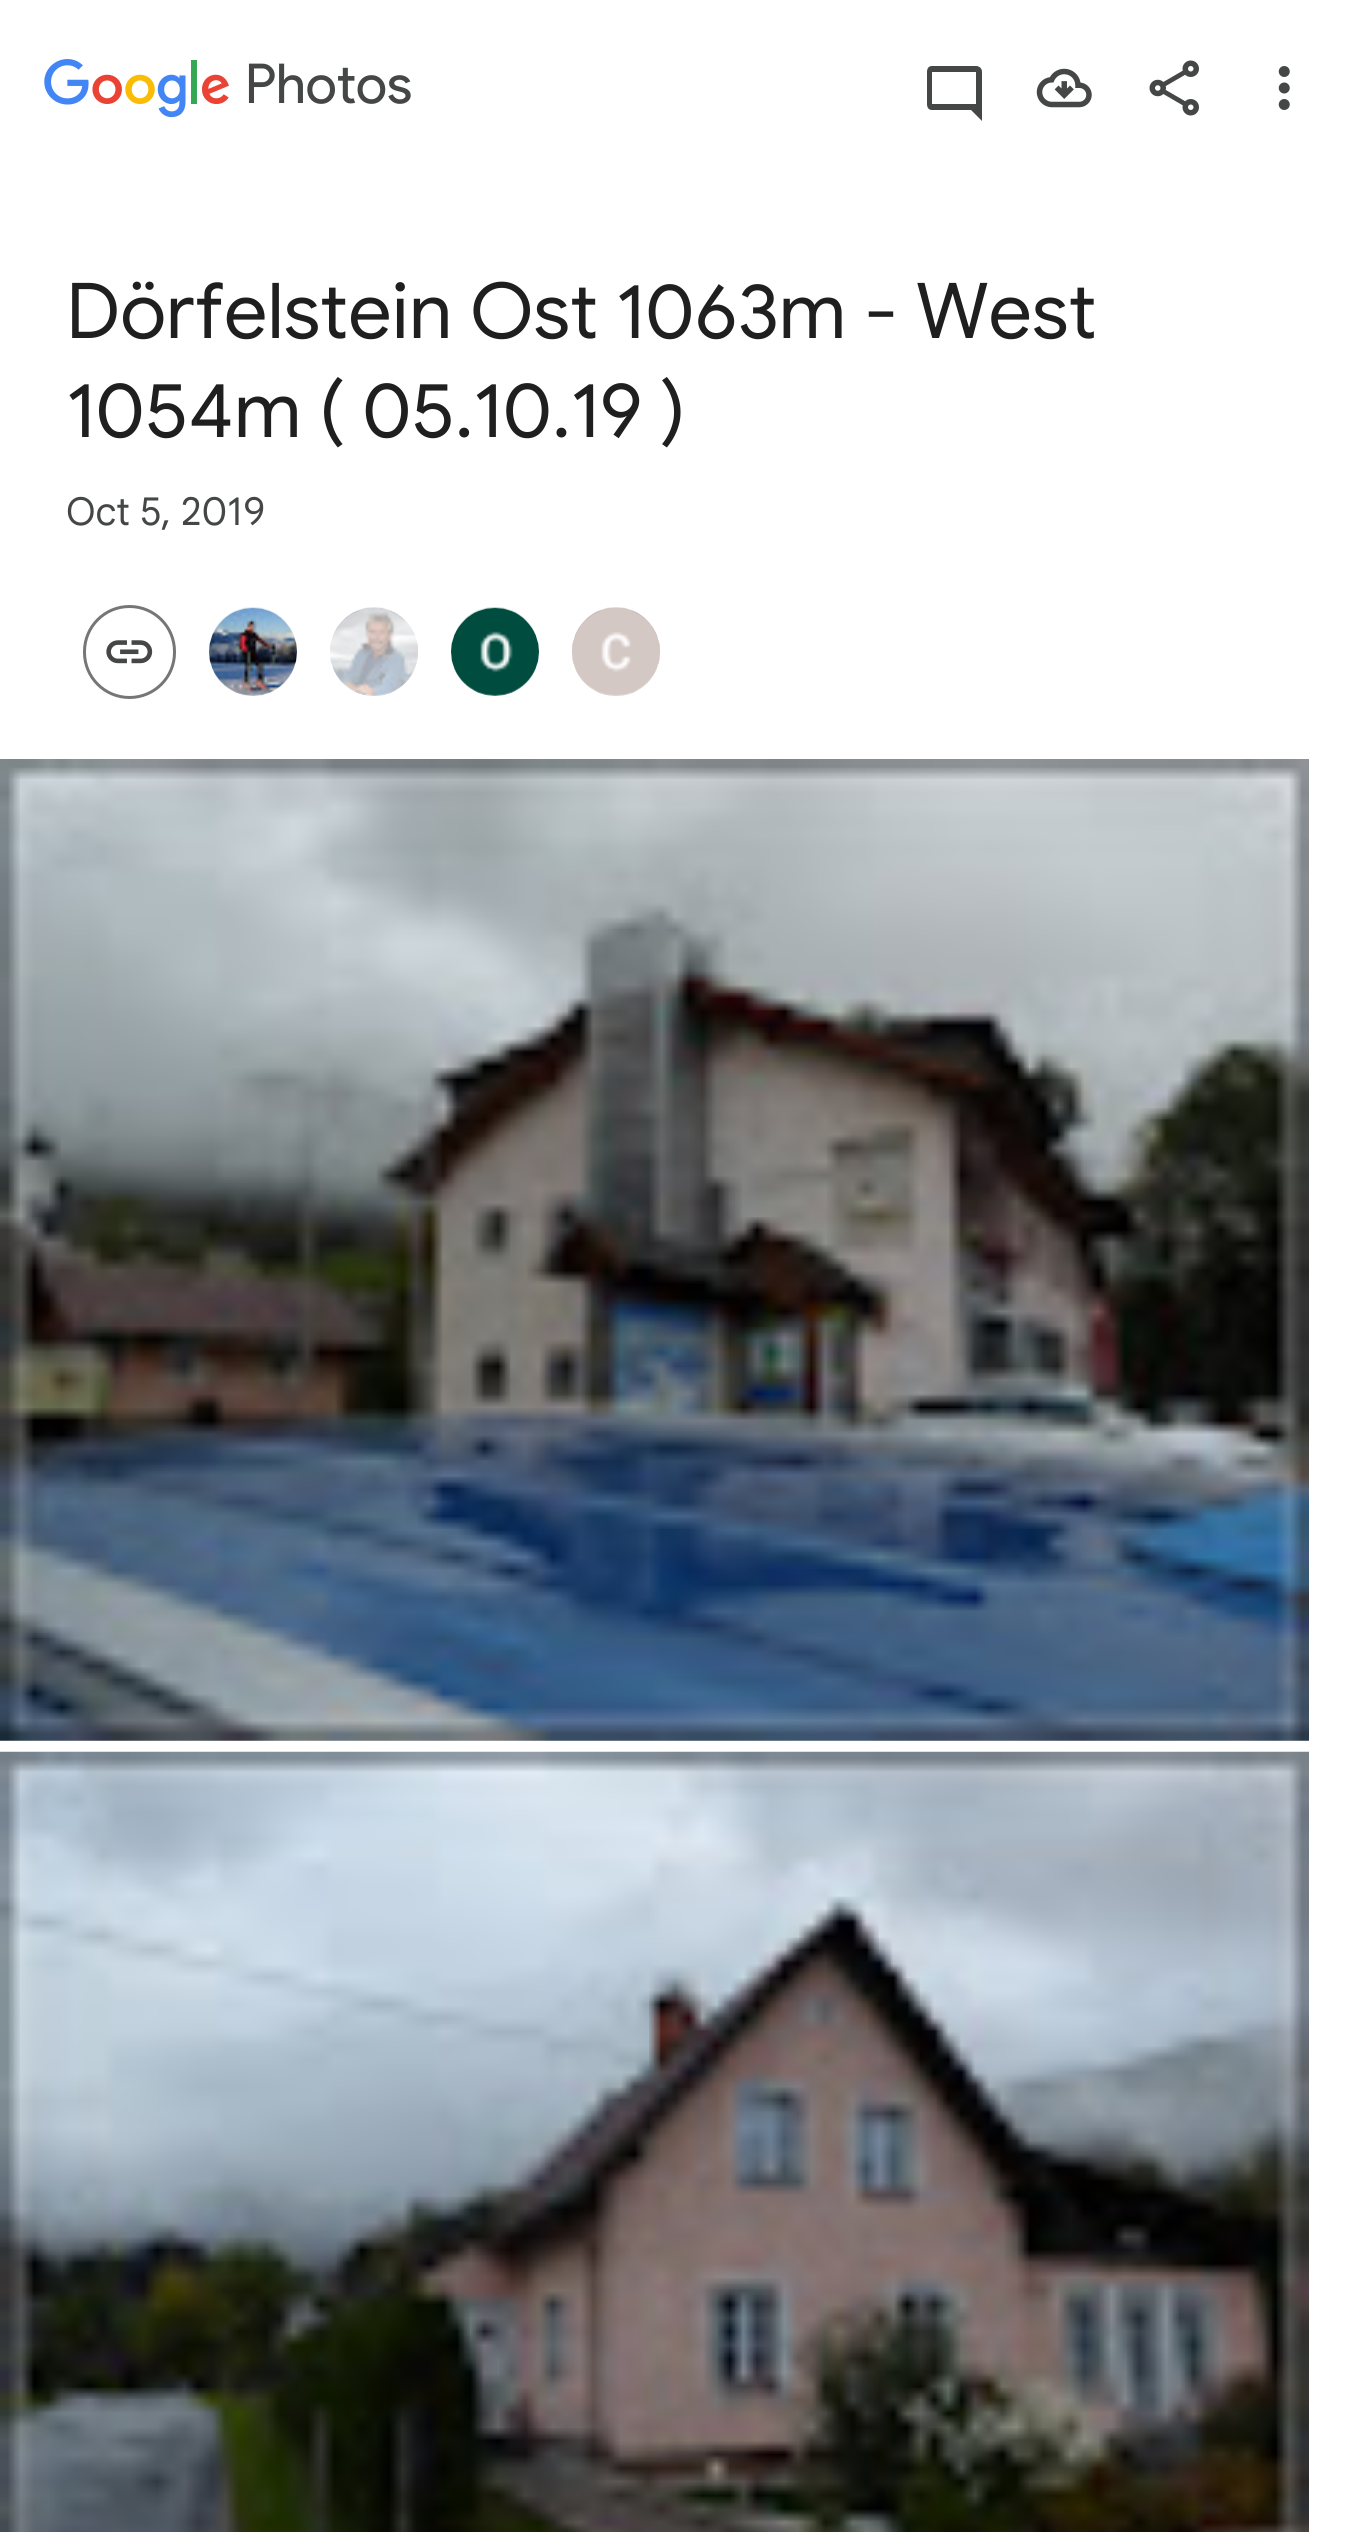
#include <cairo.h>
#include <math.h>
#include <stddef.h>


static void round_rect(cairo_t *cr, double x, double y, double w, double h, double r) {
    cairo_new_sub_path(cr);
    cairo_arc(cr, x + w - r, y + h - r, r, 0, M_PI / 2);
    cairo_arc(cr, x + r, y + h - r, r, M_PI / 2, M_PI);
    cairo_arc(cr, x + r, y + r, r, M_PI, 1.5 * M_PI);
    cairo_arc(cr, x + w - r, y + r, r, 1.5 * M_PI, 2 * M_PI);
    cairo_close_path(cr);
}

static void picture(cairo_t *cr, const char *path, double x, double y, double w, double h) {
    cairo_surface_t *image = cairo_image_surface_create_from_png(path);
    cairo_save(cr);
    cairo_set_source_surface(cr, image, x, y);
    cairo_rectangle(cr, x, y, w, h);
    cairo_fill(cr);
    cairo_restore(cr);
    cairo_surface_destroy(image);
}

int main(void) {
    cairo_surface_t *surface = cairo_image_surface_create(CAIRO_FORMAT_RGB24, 1349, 2532);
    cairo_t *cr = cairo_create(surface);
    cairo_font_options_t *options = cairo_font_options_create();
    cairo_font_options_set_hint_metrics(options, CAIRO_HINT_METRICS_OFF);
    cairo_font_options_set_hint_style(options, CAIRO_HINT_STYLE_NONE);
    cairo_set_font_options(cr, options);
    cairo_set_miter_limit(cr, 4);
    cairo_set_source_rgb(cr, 1, 1, 1);
    cairo_paint(cr);
    picture(cr, "img1.png", 44, 59, 185, 59);
    cairo_select_font_face(cr, "Product Sans", CAIRO_FONT_SLANT_NORMAL, CAIRO_FONT_WEIGHT_NORMAL);
    cairo_set_font_size(cr, 55);
    cairo_set_source_rgb(cr, 0.267, 0.278, 0.275);
    cairo_move_to(cr, 245, 103);
    cairo_show_text(cr, "Photos");
    cairo_new_path(cr);
    cairo_move_to(cr, 976, 66);
    cairo_line_to(cr, 932, 66);
    cairo_curve_to(cr, 929, 66, 927, 68, 927, 72);
    cairo_line_to(cr, 927, 104);
    cairo_curve_to(cr, 927, 108, 929, 110, 932, 110);
    cairo_line_to(cr, 971, 110);
    cairo_line_to(cr, 982, 121);
    cairo_line_to(cr, 982, 72);
    cairo_curve_to(cr, 982, 68, 979, 66, 976, 66);
    cairo_close_path(cr);
    cairo_move_to(cr, 932, 104);
    cairo_line_to(cr, 932, 72);
    cairo_line_to(cr, 976, 72);
    cairo_line_to(cr, 976, 104);
    cairo_close_path(cr);
    cairo_fill(cr);
    picture(cr, "img2.png", 1036, 68, 56, 40);
    picture(cr, "img3.png", 1149, 60, 50, 56);
    picture(cr, "img4.png", 1278, 66, 12, 44);
    cairo_select_font_face(cr, "Google Sans", CAIRO_FONT_SLANT_NORMAL, CAIRO_FONT_WEIGHT_NORMAL);
    cairo_set_font_size(cr, 77);
    cairo_set_source_rgb(cr, 0.122, 0.122, 0.122);
    cairo_move_to(cr, 66, 338);
    cairo_show_text(cr, "Dörfelstein Ost 1063m - West");
    cairo_move_to(cr, 66, 437);
    cairo_show_text(cr, "1054m ( 05.10.19 )");
    cairo_select_font_face(cr, "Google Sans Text", CAIRO_FONT_SLANT_NORMAL, CAIRO_FONT_WEIGHT_NORMAL);
    cairo_set_font_size(cr, 38.5);
    cairo_set_source_rgb(cr, 0.267, 0.278, 0.275);
    cairo_move_to(cr, 66, 525);
    cairo_show_text(cr, "Oct 5, 2019");
    round_rect(cr, 84.5, 606.5, 90, 91, 45);
    cairo_set_source_rgb(cr, 0.455, 0.467, 0.459);
    cairo_set_line_width(cr, 3);
    cairo_stroke(cr);
    picture(cr, "img5.png", 106, 640, 47, 24);
    picture(cr, "img6.png", 209, 607, 88, 89);
    picture(cr, "img7.png", 330, 607, 88, 89);
    cairo_set_source_rgba(cr, 1, 1, 1, 0.62);
    cairo_arc(cr, 374, 652, 44, 0, 2 * M_PI);
    cairo_fill(cr);
    picture(cr, "img8.png", 451, 607, 88, 89);
    picture(cr, "img9.png", 572, 607, 88, 89);
    cairo_arc(cr, 616, 652, 44, 0, 2 * M_PI);
    cairo_fill(cr);
    picture(cr, "img10.png", 0, 759, 1309, 982);
    picture(cr, "img11.png", 0, 1751, 1309, 781);
    cairo_surface_write_to_png(surface, "page.png");
    cairo_font_options_destroy(options);
    cairo_destroy(cr);
    cairo_surface_destroy(surface);
    return 0;
}
